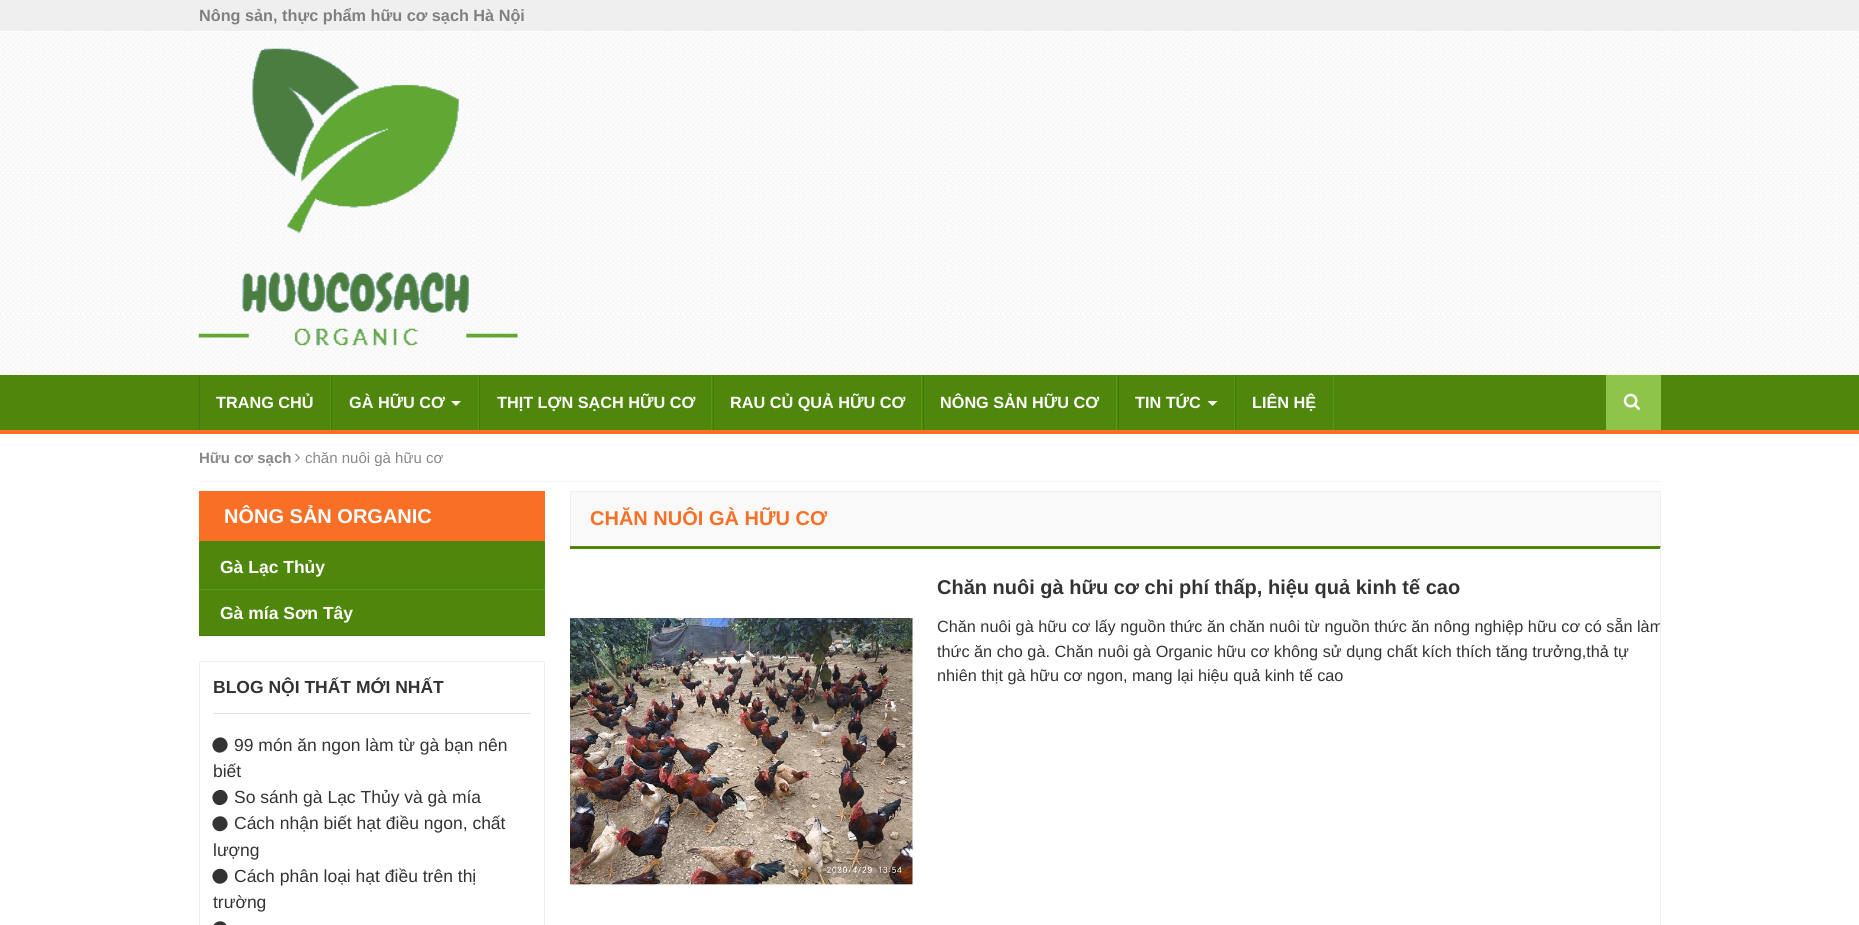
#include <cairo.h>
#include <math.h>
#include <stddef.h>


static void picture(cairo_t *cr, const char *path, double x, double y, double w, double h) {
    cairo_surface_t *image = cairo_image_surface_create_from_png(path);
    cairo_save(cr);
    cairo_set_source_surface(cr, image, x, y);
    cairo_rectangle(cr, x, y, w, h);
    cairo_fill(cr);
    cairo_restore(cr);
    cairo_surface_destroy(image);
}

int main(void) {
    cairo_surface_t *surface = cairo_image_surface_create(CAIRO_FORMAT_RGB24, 1859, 925);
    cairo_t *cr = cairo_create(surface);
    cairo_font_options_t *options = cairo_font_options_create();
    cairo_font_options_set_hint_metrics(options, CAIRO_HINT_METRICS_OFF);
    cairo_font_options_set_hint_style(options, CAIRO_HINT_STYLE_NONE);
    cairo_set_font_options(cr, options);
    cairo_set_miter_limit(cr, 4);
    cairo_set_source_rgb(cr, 1, 1, 1);
    cairo_paint(cr);
    cairo_set_source_rgb(cr, 0.937, 0.937, 0.937);
    cairo_rectangle(cr, 0, 0, 1859, 31);
    cairo_fill(cr);
    cairo_select_font_face(cr, "Liberation Sans", CAIRO_FONT_SLANT_NORMAL, CAIRO_FONT_WEIGHT_BOLD);
    cairo_set_font_size(cr, 16.25);
    cairo_set_source_rgb(cr, 0.502, 0.502, 0.502);
    cairo_move_to(cr, 199, 21);
    cairo_show_text(cr, "Nông sản, thực phẩm hữu cơ sạch Hà Nội");
    picture(cr, "img1.png", 0, 31, 1859, 344);
    picture(cr, "img2.png", 198, 48, 320, 298);
    cairo_set_source_rgb(cr, 0.306, 0.529, 0.043);
    cairo_rectangle(cr, 0, 375, 1859, 55);
    cairo_fill(cr);
    cairo_set_source_rgb(cr, 0.969, 0.435, 0.145);
    cairo_rectangle(cr, 0, 430, 1859, 4);
    cairo_fill(cr);
    cairo_set_source_rgb(cr, 0.349, 0.604, 0.051);
    cairo_rectangle(cr, 330, 375, 1, 55);
    cairo_fill(cr);
    cairo_set_source_rgb(cr, 0.271, 0.467, 0.039);
    cairo_rectangle(cr, 199, 375, 1, 55);
    cairo_fill(cr);
    cairo_set_source_rgb(cr, 1, 1, 1);
    cairo_move_to(cr, 216, 408);
    cairo_show_text(cr, "TRANG CHỦ");
    cairo_set_source_rgb(cr, 0.349, 0.604, 0.051);
    cairo_rectangle(cr, 478, 375, 1, 55);
    cairo_fill(cr);
    cairo_set_source_rgb(cr, 0.271, 0.467, 0.039);
    cairo_rectangle(cr, 331, 375, 1, 55);
    cairo_fill(cr);
    cairo_set_source_rgb(cr, 1, 1, 1);
    cairo_move_to(cr, 349, 408);
    cairo_show_text(cr, "GÀ HỮU CƠ");
    cairo_new_path(cr);
    cairo_move_to(cr, 451, 401);
    cairo_line_to(cr, 461, 401);
    cairo_line_to(cr, 456, 406);
    cairo_close_path(cr);
    cairo_fill(cr);
    cairo_set_source_rgb(cr, 0.349, 0.604, 0.051);
    cairo_rectangle(cr, 711, 375, 1, 55);
    cairo_fill(cr);
    cairo_set_source_rgb(cr, 0.271, 0.467, 0.039);
    cairo_rectangle(cr, 479, 375, 1, 55);
    cairo_fill(cr);
    cairo_set_source_rgb(cr, 1, 1, 1);
    cairo_move_to(cr, 497, 408);
    cairo_show_text(cr, "THỊT LỢN SẠCH HỮU CƠ");
    cairo_set_source_rgb(cr, 0.349, 0.604, 0.051);
    cairo_rectangle(cr, 921, 375, 1, 55);
    cairo_fill(cr);
    cairo_set_source_rgb(cr, 0.271, 0.467, 0.039);
    cairo_rectangle(cr, 713, 375, 1, 55);
    cairo_fill(cr);
    cairo_set_source_rgb(cr, 1, 1, 1);
    cairo_move_to(cr, 730, 408);
    cairo_show_text(cr, "RAU CỦ QUẢ HỮU CƠ");
    cairo_set_source_rgb(cr, 0.349, 0.604, 0.051);
    cairo_rectangle(cr, 1116, 375, 1, 55);
    cairo_fill(cr);
    cairo_set_source_rgb(cr, 0.271, 0.467, 0.039);
    cairo_rectangle(cr, 923, 375, 1, 55);
    cairo_fill(cr);
    cairo_set_source_rgb(cr, 1, 1, 1);
    cairo_move_to(cr, 940, 408);
    cairo_show_text(cr, "NÔNG SẢN HỮU CƠ");
    cairo_set_source_rgb(cr, 0.349, 0.604, 0.051);
    cairo_rectangle(cr, 1234, 375, 1, 55);
    cairo_fill(cr);
    cairo_set_source_rgb(cr, 0.271, 0.467, 0.039);
    cairo_rectangle(cr, 1118, 375, 1, 55);
    cairo_fill(cr);
    cairo_set_source_rgb(cr, 1, 1, 1);
    cairo_move_to(cr, 1135, 408);
    cairo_show_text(cr, "TIN TỨC");
    cairo_new_path(cr);
    cairo_move_to(cr, 1207.5, 401);
    cairo_line_to(cr, 1217.5, 401);
    cairo_line_to(cr, 1212.5, 406);
    cairo_close_path(cr);
    cairo_fill(cr);
    cairo_set_source_rgb(cr, 0.349, 0.604, 0.051);
    cairo_rectangle(cr, 1333, 375, 1, 55);
    cairo_fill(cr);
    cairo_set_source_rgb(cr, 0.271, 0.467, 0.039);
    cairo_rectangle(cr, 1235, 375, 1, 55);
    cairo_fill(cr);
    cairo_set_source_rgb(cr, 1, 1, 1);
    cairo_move_to(cr, 1252, 408);
    cairo_show_text(cr, "LIÊN HỆ");
    cairo_set_source_rgb(cr, 0.557, 0.769, 0.286);
    cairo_rectangle(cr, 1606, 375, 55, 55);
    cairo_fill(cr);
    picture(cr, "img3.png", 1623, 393, 17, 17);
    cairo_set_source_rgb(cr, 0.961, 0.961, 0.961);
    cairo_rectangle(cr, 199, 481, 1462, 1);
    cairo_fill(cr);
    cairo_set_font_size(cr, 15);
    cairo_set_source_rgb(cr, 0.533, 0.533, 0.533);
    cairo_move_to(cr, 199, 463);
    cairo_show_text(cr, "Hữu cơ sạch");
    picture(cr, "img4.png", 295, 453, 5, 9);
    cairo_select_font_face(cr, "Liberation Sans", CAIRO_FONT_SLANT_NORMAL, CAIRO_FONT_WEIGHT_NORMAL);
    cairo_move_to(cr, 305, 463);
    cairo_show_text(cr, "chăn nuôi gà hữu cơ");
    cairo_set_source_rgb(cr, 0.969, 0.435, 0.145);
    cairo_rectangle(cr, 199, 491, 346, 50);
    cairo_fill(cr);
    cairo_select_font_face(cr, "Liberation Sans", CAIRO_FONT_SLANT_NORMAL, CAIRO_FONT_WEIGHT_BOLD);
    cairo_set_font_size(cr, 20);
    cairo_set_source_rgb(cr, 1, 1, 1);
    cairo_move_to(cr, 224, 523);
    cairo_show_text(cr, "NÔNG SẢN ORGANIC");
    cairo_set_source_rgb(cr, 0.306, 0.529, 0.043);
    cairo_rectangle(cr, 199, 541, 346, 94);
    cairo_fill(cr);
    cairo_set_font_size(cr, 17.5);
    cairo_set_source_rgb(cr, 1, 1, 1);
    cairo_move_to(cr, 220, 573);
    cairo_show_text(cr, "Gà Lạc Thủy");
    cairo_set_source_rgb(cr, 0.357, 0.612, 0.055);
    cairo_rectangle(cr, 199, 589, 346, 1);
    cairo_fill(cr);
    cairo_set_source_rgb(cr, 0.275, 0.475, 0.039);
    cairo_rectangle(cr, 199, 635, 346, 1);
    cairo_fill(cr);
    cairo_set_source_rgb(cr, 1, 1, 1);
    cairo_move_to(cr, 220, 619);
    cairo_show_text(cr, "Gà mía Sơn Tây");
    cairo_rectangle(cr, 199.5, 661.5, 345, 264);
    cairo_set_source_rgb(cr, 0.933, 0.933, 0.933);
    cairo_set_line_width(cr, 1);
    cairo_stroke(cr);
    cairo_set_source_rgb(cr, 0.894, 0.894, 0.894);
    cairo_rectangle(cr, 213, 713, 318, 1);
    cairo_fill(cr);
    cairo_set_source_rgb(cr, 0.2, 0.2, 0.2);
    cairo_move_to(cr, 213, 693);
    cairo_show_text(cr, "BLOG NỘI THẤT MỚI NHẤT");
    cairo_new_path(cr);
    cairo_move_to(cr, 226.5, 741);
    cairo_curve_to(cr, 231.5, 749.5, 218.5, 757.5, 213.5, 749);
    cairo_curve_to(cr, 208.5, 740.5, 221.5, 732.5, 226.5, 741);
    cairo_close_path(cr);
    cairo_fill(cr);
    cairo_select_font_face(cr, "Liberation Sans", CAIRO_FONT_SLANT_NORMAL, CAIRO_FONT_WEIGHT_NORMAL);
    cairo_move_to(cr, 234, 751);
    cairo_show_text(cr, "99 món ăn ngon làm từ gà bạn nên");
    cairo_move_to(cr, 213, 777);
    cairo_show_text(cr, "biết");
    cairo_new_path(cr);
    cairo_move_to(cr, 226.5, 793.5);
    cairo_curve_to(cr, 231.5, 802, 218.5, 810, 213.5, 801.5);
    cairo_curve_to(cr, 208.5, 793, 221.5, 785, 226.5, 793.5);
    cairo_close_path(cr);
    cairo_fill(cr);
    cairo_move_to(cr, 234, 803);
    cairo_show_text(cr, "So sánh gà Lạc Thủy và gà mía");
    cairo_new_path(cr);
    cairo_move_to(cr, 226.5, 820);
    cairo_curve_to(cr, 231.5, 828.5, 218.5, 836, 213.5, 827.5);
    cairo_curve_to(cr, 208.5, 819, 221.5, 811.5, 226.5, 820);
    cairo_close_path(cr);
    cairo_fill(cr);
    cairo_move_to(cr, 234, 829);
    cairo_show_text(cr, "Cách nhận biết hạt điều ngon, chất");
    cairo_move_to(cr, 213, 856);
    cairo_show_text(cr, "lượng");
    cairo_new_path(cr);
    cairo_move_to(cr, 226.5, 872.5);
    cairo_curve_to(cr, 231.5, 881, 218.5, 888.5, 213.5, 880);
    cairo_curve_to(cr, 208.5, 871.5, 221.5, 864, 226.5, 872.5);
    cairo_close_path(cr);
    cairo_fill(cr);
    cairo_move_to(cr, 234, 882);
    cairo_show_text(cr, "Cách phân loại hạt điều trên thị");
    cairo_move_to(cr, 213, 908);
    cairo_show_text(cr, "trường");
    cairo_new_path(cr);
    cairo_move_to(cr, 226.5, 925);
    cairo_curve_to(cr, 231.5, 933.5, 218.5, 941, 213.5, 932.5);
    cairo_curve_to(cr, 208.5, 924, 221.5, 916.5, 226.5, 925);
    cairo_close_path(cr);
    cairo_fill(cr);
    cairo_set_source_rgb(cr, 0.976, 0.976, 0.976);
    cairo_rectangle(cr, 571, 492, 1089, 53);
    cairo_fill(cr);
    cairo_set_source_rgb(cr, 0.933, 0.933, 0.933);
    cairo_rectangle(cr, 570, 491, 1091, 1);
    cairo_fill(cr);
    cairo_rectangle(cr, 1660, 491, 1, 55);
    cairo_fill(cr);
    cairo_set_source_rgb(cr, 1, 1, 1);
    cairo_rectangle(cr, 1660, 545, 1, 1);
    cairo_fill(cr);
    cairo_set_source_rgb(cr, 0.933, 0.933, 0.933);
    cairo_rectangle(cr, 570, 491, 1, 55);
    cairo_fill(cr);
    cairo_select_font_face(cr, "Liberation Sans", CAIRO_FONT_SLANT_NORMAL, CAIRO_FONT_WEIGHT_BOLD);
    cairo_set_font_size(cr, 20);
    cairo_set_source_rgb(cr, 0.969, 0.435, 0.145);
    cairo_move_to(cr, 590, 525);
    cairo_show_text(cr, "CHĂN NUÔI GÀ HỮU CƠ");
    cairo_set_source_rgb(cr, 0.306, 0.529, 0.043);
    cairo_new_path(cr);
    cairo_move_to(cr, 570, 546);
    cairo_line_to(cr, 1661, 546);
    cairo_line_to(cr, 1660, 549);
    cairo_line_to(cr, 570, 549);
    cairo_close_path(cr);
    cairo_fill(cr);
    cairo_set_source_rgb(cr, 0.933, 0.933, 0.933);
    cairo_new_path(cr);
    cairo_move_to(cr, 1661, 546);
    cairo_line_to(cr, 1661, 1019);
    cairo_line_to(cr, 1660, 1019);
    cairo_line_to(cr, 1660, 549);
    cairo_close_path(cr);
    cairo_fill(cr);
    picture(cr, "img5.png", 570, 611, 343, 275);
    cairo_set_source_rgb(cr, 0.2, 0.2, 0.2);
    cairo_move_to(cr, 937, 594);
    cairo_show_text(cr, "Chăn nuôi gà hữu cơ chi phí thấp, hiệu quả kinh tế cao");
    cairo_save(cr);
    cairo_rectangle(cr, 570, 574, 1090, 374);
    cairo_clip(cr);
    cairo_select_font_face(cr, "Liberation Sans", CAIRO_FONT_SLANT_NORMAL, CAIRO_FONT_WEIGHT_NORMAL);
    cairo_set_font_size(cr, 16.25);
    cairo_move_to(cr, 937, 632);
    cairo_show_text(cr, "Chăn nuôi gà hữu cơ lấy nguồn thức ăn chăn nuôi từ nguồn thức ăn nông nghiệp hữu cơ có sẵn làm");
    cairo_restore(cr);
    cairo_select_font_face(cr, "Liberation Sans", CAIRO_FONT_SLANT_NORMAL, CAIRO_FONT_WEIGHT_NORMAL);
    cairo_set_font_size(cr, 16.25);
    cairo_move_to(cr, 937, 657);
    cairo_show_text(cr, "thức ăn cho gà. Chăn nuôi gà Organic hữu cơ không sử dụng chất kích thích tăng trưởng,thả tự");
    cairo_move_to(cr, 937, 681);
    cairo_show_text(cr, "nhiên thịt gà hữu cơ ngon, mang lại hiệu quả kinh tế cao");
    cairo_surface_write_to_png(surface, "page.png");
    cairo_font_options_destroy(options);
    cairo_destroy(cr);
    cairo_surface_destroy(surface);
    return 0;
}
